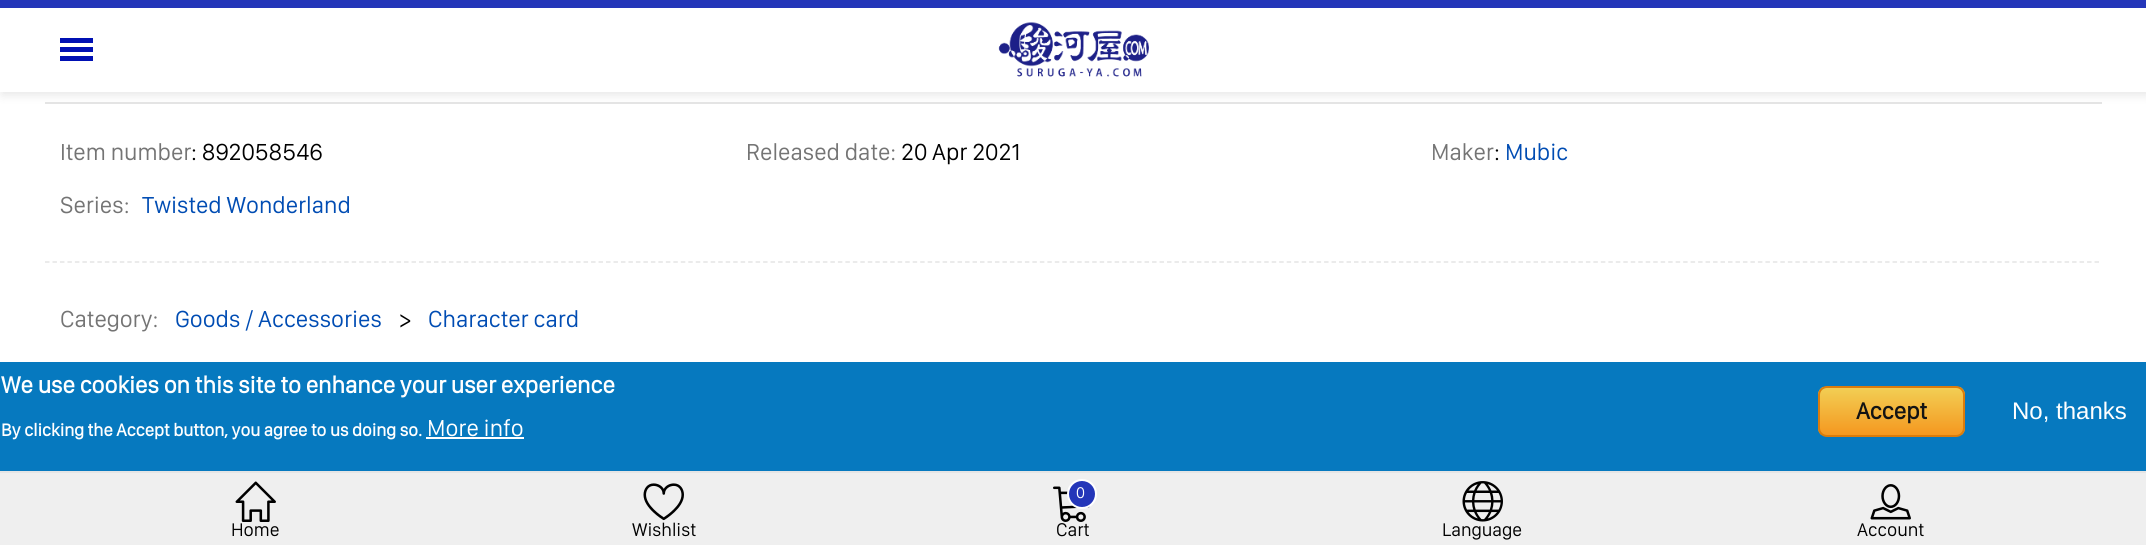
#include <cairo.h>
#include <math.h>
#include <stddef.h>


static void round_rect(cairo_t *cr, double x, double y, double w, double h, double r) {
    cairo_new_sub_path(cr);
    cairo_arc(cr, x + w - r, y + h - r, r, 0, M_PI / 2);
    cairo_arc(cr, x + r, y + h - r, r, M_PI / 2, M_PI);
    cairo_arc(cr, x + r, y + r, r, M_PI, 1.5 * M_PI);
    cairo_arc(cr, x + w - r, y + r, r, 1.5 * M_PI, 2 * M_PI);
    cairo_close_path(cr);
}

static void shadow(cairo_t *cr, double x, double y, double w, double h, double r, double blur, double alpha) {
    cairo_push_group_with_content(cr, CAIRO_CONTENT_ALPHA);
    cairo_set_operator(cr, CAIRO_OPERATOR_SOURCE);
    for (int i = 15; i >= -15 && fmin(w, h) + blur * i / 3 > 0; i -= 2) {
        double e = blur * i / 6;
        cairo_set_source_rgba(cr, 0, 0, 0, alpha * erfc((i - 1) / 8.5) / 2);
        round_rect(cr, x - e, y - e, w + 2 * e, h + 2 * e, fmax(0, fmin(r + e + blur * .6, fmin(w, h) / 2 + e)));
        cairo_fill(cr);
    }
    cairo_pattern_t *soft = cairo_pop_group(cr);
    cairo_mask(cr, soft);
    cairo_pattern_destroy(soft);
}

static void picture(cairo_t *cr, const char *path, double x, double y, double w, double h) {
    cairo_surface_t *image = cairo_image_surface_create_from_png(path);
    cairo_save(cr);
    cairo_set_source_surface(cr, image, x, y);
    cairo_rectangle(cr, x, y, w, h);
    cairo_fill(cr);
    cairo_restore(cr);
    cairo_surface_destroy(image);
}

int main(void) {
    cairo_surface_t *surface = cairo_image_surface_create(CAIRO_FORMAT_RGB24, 2146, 545);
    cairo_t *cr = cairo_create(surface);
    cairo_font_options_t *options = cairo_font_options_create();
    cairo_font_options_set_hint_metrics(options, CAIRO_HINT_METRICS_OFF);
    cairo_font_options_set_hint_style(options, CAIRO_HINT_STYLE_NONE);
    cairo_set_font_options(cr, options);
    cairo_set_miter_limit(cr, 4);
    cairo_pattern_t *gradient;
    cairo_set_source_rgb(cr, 1, 1, 1);
    cairo_paint(cr);
    cairo_set_source_rgb(cr, 0.898, 0.898, 0.898);
    cairo_rectangle(cr, 45, 102, 2057, 2);
    cairo_fill(cr);
    cairo_set_source_rgb(cr, 0, 0, 0);
    shadow(cr, 2, 3, 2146, 92, 0, 5, 0.1);
    cairo_set_source_rgb(cr, 1, 1, 1);
    cairo_rectangle(cr, 0, 8, 2146, 84);
    cairo_fill(cr);
    cairo_set_source_rgb(cr, 0.141, 0.212, 0.725);
    cairo_rectangle(cr, 0, 0, 2146, 8);
    cairo_fill(cr);
    cairo_set_source_rgb(cr, 0, 0.063, 0.702);
    cairo_rectangle(cr, 60, 47, 33, 5);
    cairo_fill(cr);
    cairo_rectangle(cr, 60, 38, 33, 5);
    cairo_fill(cr);
    cairo_rectangle(cr, 60, 56, 33, 5);
    cairo_fill(cr);
    picture(cr, "img1.png", 998, 22, 151, 55);
    cairo_new_path(cr);
    cairo_move_to(cr, 45, 262);
    cairo_line_to(cr, 2101.5, 262);
    cairo_set_source_rgb(cr, 0.898, 0.898, 0.898);
    cairo_set_line_width(cr, 1.5);
    cairo_set_dash(cr, (double[]){4.5, 2.98}, 2, 0);
    cairo_stroke(cr);
    cairo_select_font_face(cr, "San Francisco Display", CAIRO_FONT_SLANT_NORMAL, CAIRO_FONT_WEIGHT_NORMAL);
    cairo_set_font_size(cr, 24);
    cairo_set_source_rgb(cr, 0.455, 0.455, 0.455);
    cairo_move_to(cr, 60, 160);
    cairo_show_text(cr, "Item number");
    cairo_set_source_rgb(cr, 0, 0, 0);
    cairo_move_to(cr, 191, 160);
    cairo_show_text(cr, ": 892058546");
    cairo_set_source_rgb(cr, 0.455, 0.455, 0.455);
    cairo_move_to(cr, 746, 160);
    cairo_show_text(cr, "Released date:");
    cairo_set_source_rgb(cr, 0, 0, 0);
    cairo_move_to(cr, 901, 160);
    cairo_show_text(cr, "20 Apr 2021");
    cairo_set_source_rgb(cr, 0.455, 0.455, 0.455);
    cairo_move_to(cr, 1431, 160);
    cairo_show_text(cr, "Maker");
    cairo_set_source_rgb(cr, 0, 0, 0);
    cairo_move_to(cr, 1494, 160);
    cairo_show_text(cr, ":");
    cairo_set_source_rgb(cr, 0, 0.298, 0.702);
    cairo_move_to(cr, 1505, 160);
    cairo_show_text(cr, "Mubic");
    cairo_set_source_rgb(cr, 0.455, 0.455, 0.455);
    cairo_move_to(cr, 60, 213);
    cairo_show_text(cr, "Series:");
    cairo_set_source_rgb(cr, 0, 0.298, 0.702);
    cairo_move_to(cr, 142, 213);
    cairo_show_text(cr, "Twisted Wonderland");
    cairo_set_source_rgb(cr, 0.455, 0.455, 0.455);
    cairo_move_to(cr, 60, 327);
    cairo_show_text(cr, "Category:");
    cairo_set_source_rgb(cr, 0, 0.298, 0.702);
    cairo_move_to(cr, 175, 327);
    cairo_show_text(cr, "Goods / Accessories");
    cairo_set_source_rgb(cr, 0, 0, 0);
    cairo_move_to(cr, 399, 327);
    cairo_show_text(cr, ">");
    cairo_set_source_rgb(cr, 0, 0.298, 0.702);
    cairo_move_to(cr, 428, 327);
    cairo_show_text(cr, "Character card");
    cairo_set_source_rgb(cr, 0.937, 0.937, 0.937);
    cairo_rectangle(cr, 0, 473, 2146, 72);
    cairo_fill(cr);
    cairo_set_source_rgb(cr, 0.898, 0.898, 0.898);
    cairo_rectangle(cr, 0, 471, 2146, 2);
    cairo_fill(cr);
    picture(cr, "img2.png", 235, 481, 41, 41);
    cairo_set_font_size(cr, 19);
    cairo_set_source_rgb(cr, 0, 0, 0);
    cairo_move_to(cr, 231, 536);
    cairo_show_text(cr, "Home");
    picture(cr, "img3.png", 643, 483, 41, 38);
    cairo_move_to(cr, 632, 536);
    cairo_show_text(cr, "Wishlist");
    picture(cr, "img4.png", 1053, 486, 37, 36);
    cairo_set_source_rgb(cr, 0.141, 0.212, 0.725);
    cairo_arc(cr, 1082, 494, 14, 0, 2 * M_PI);
    cairo_fill_preserve(cr);
    cairo_set_source_rgb(cr, 1, 1, 1);
    cairo_set_line_width(cr, 2);
    cairo_set_dash(cr, NULL, 0, 0);
    cairo_stroke(cr);
    cairo_set_font_size(cr, 16);
    cairo_move_to(cr, 1076, 498);
    cairo_show_text(cr, "0");
    cairo_set_font_size(cr, 19);
    cairo_set_source_rgb(cr, 0, 0, 0);
    cairo_move_to(cr, 1056, 536);
    cairo_show_text(cr, "Cart");
    picture(cr, "img5.png", 1462, 481, 41, 41);
    cairo_move_to(cr, 1442, 536);
    cairo_show_text(cr, "Language");
    picture(cr, "img6.png", 1870, 484, 41, 36);
    cairo_move_to(cr, 1857, 536);
    cairo_show_text(cr, "Account");
    cairo_set_source_rgb(cr, 0.027, 0.475, 0.749);
    cairo_rectangle(cr, 0, 362, 2146, 109);
    cairo_fill(cr);
    cairo_select_font_face(cr, "San Francisco Display", CAIRO_FONT_SLANT_NORMAL, CAIRO_FONT_WEIGHT_BOLD);
    cairo_set_font_size(cr, 24);
    cairo_set_source_rgb(cr, 1, 1, 1);
    cairo_move_to(cr, 1, 393);
    cairo_show_text(cr, "We use cookies on this site to enhance your user experience");
    cairo_set_font_size(cr, 18);
    cairo_move_to(cr, 1, 436);
    cairo_show_text(cr, "By clicking the Accept button, you agree to us doing so.");
    cairo_select_font_face(cr, "San Francisco Display", CAIRO_FONT_SLANT_NORMAL, CAIRO_FONT_WEIGHT_NORMAL);
    cairo_set_font_size(cr, 24);
    cairo_move_to(cr, 427, 436);
    cairo_show_text(cr, "More info");
    cairo_rectangle(cr, 426, 437, 98, 2);
    cairo_fill(cr);
    cairo_save(cr);
    round_rect(cr, 1818, 386, 147, 51, 9);
    cairo_clip(cr);
    gradient = cairo_pattern_create_linear(1820, 387, 1820, 435);
    cairo_pattern_add_color_stop_rgba(gradient, 0, 0.949, 0.812, 0.333, 1);
    cairo_pattern_add_color_stop_rgba(gradient, 1, 0.957, 0.596, 0.125, 1);
    cairo_set_source(cr, gradient);
    cairo_pattern_destroy(gradient);
    cairo_rectangle(cr, 1818, 387, 147, 48);
    cairo_fill(cr);
    cairo_restore(cr);
    round_rect(cr, 1819, 387, 145, 49, 8);
    cairo_set_source_rgb(cr, 0.855, 0.486, 0.047);
    cairo_stroke(cr);
    cairo_select_font_face(cr, "San Francisco Display", CAIRO_FONT_SLANT_NORMAL, CAIRO_FONT_WEIGHT_BOLD);
    cairo_set_source_rgb(cr, 0.075, 0.075, 0.075);
    cairo_move_to(cr, 1856, 419);
    cairo_show_text(cr, "Accept");
    cairo_select_font_face(cr, "Liberation Sans", CAIRO_FONT_SLANT_NORMAL, CAIRO_FONT_WEIGHT_NORMAL);
    cairo_set_source_rgb(cr, 1, 1, 1);
    cairo_move_to(cr, 2012, 419);
    cairo_show_text(cr, "No, thanks");
    cairo_surface_write_to_png(surface, "page.png");
    cairo_font_options_destroy(options);
    cairo_destroy(cr);
    cairo_surface_destroy(surface);
    return 0;
}
